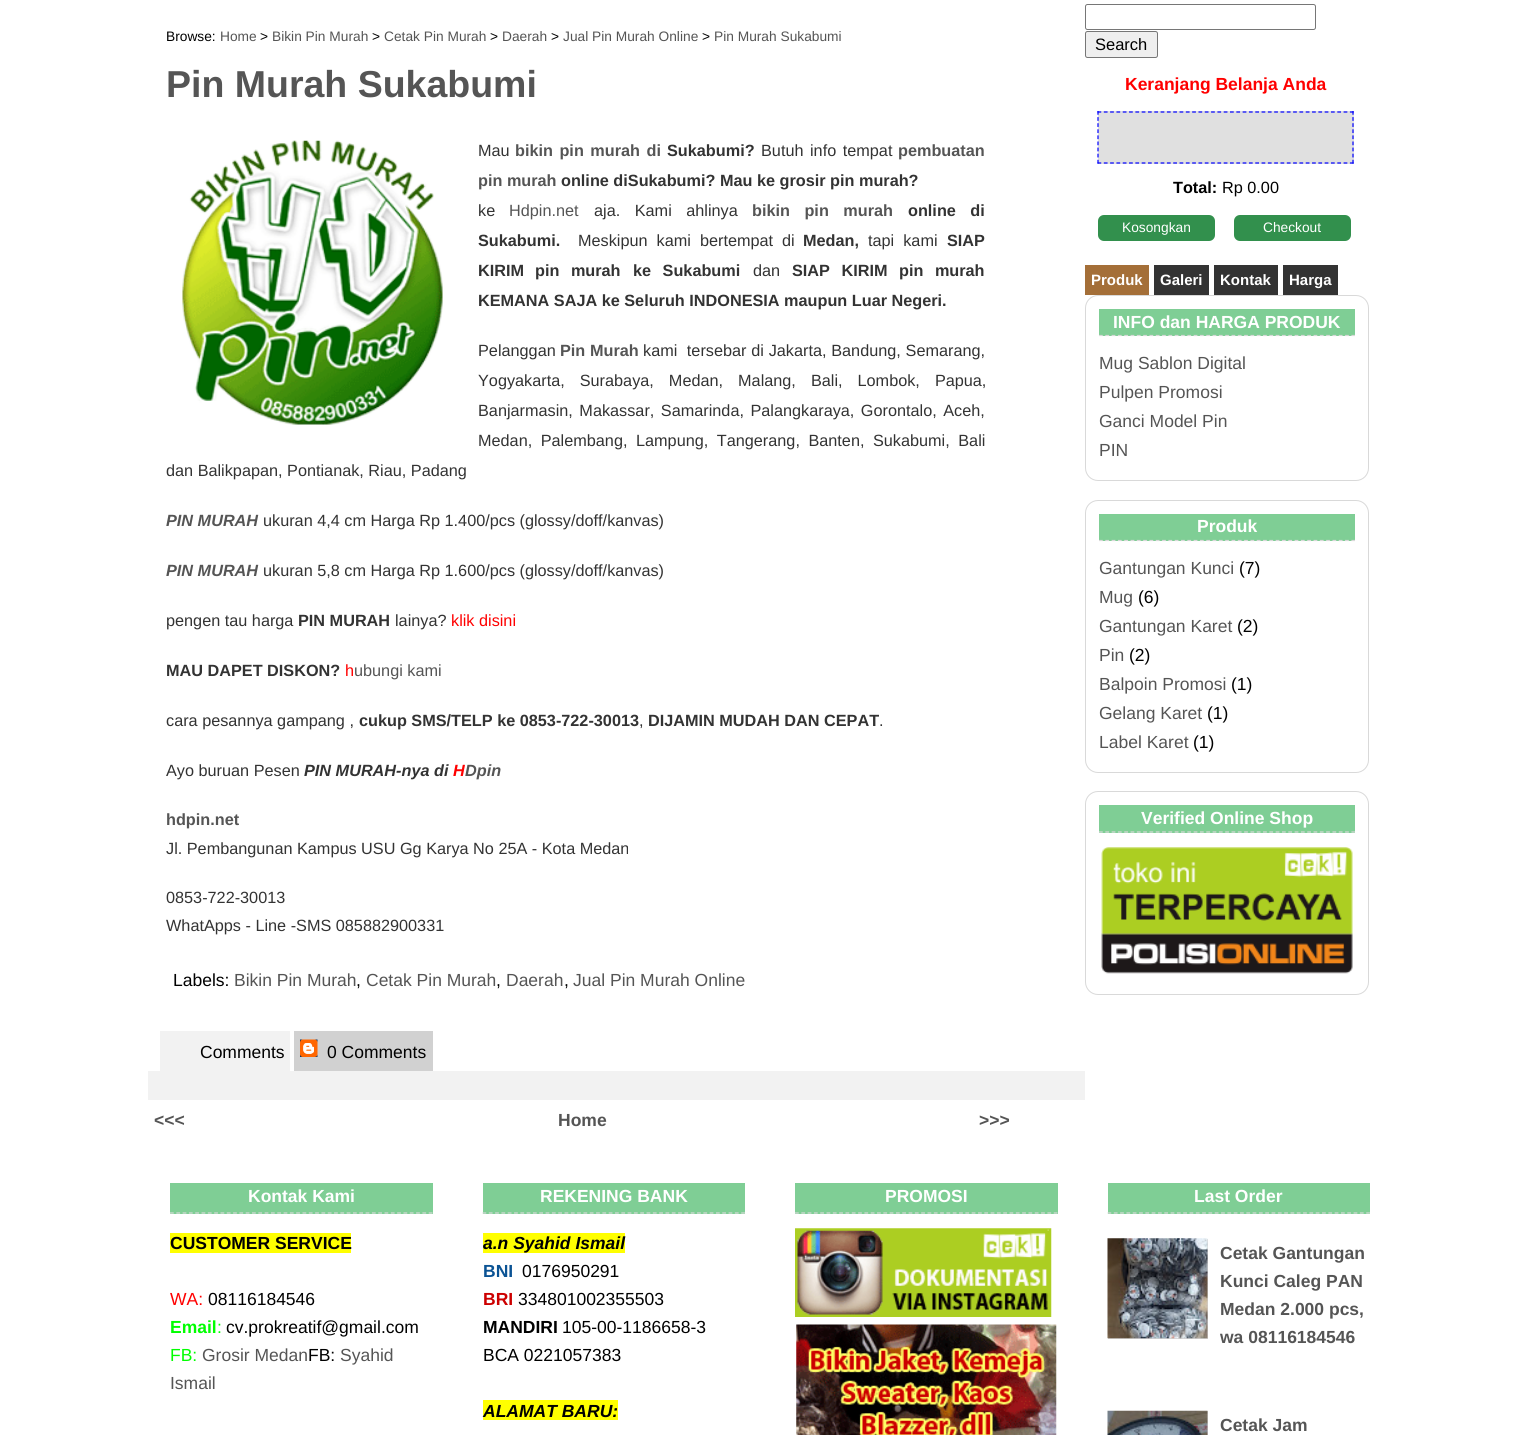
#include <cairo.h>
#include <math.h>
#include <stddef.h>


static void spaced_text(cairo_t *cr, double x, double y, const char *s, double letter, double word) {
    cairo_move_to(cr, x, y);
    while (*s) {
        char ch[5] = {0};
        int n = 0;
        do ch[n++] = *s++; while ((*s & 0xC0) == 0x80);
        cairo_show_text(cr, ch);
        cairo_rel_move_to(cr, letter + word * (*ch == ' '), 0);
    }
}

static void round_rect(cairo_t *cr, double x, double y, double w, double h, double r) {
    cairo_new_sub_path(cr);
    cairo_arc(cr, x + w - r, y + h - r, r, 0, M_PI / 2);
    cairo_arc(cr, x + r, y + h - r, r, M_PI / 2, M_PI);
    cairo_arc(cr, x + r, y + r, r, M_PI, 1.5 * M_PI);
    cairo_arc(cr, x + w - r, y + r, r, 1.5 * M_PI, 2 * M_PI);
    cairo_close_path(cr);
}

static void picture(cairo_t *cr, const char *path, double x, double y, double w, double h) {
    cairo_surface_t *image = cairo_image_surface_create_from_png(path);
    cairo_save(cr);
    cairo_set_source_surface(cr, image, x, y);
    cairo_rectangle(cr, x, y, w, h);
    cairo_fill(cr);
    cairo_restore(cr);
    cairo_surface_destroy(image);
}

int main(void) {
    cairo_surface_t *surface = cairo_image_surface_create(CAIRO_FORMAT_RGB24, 1532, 1435);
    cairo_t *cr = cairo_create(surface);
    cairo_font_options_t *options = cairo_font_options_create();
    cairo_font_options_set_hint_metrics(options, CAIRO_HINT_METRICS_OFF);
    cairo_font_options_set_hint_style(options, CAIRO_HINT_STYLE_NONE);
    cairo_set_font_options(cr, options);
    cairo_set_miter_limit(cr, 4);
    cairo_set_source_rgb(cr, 1, 1, 1);
    cairo_paint(cr);
    cairo_select_font_face(cr, "Liberation Sans", CAIRO_FONT_SLANT_NORMAL, CAIRO_FONT_WEIGHT_NORMAL);
    cairo_set_font_size(cr, 13.75);
    cairo_set_source_rgb(cr, 0, 0, 0);
    cairo_move_to(cr, 166, 41);
    cairo_show_text(cr, "Browse:");
    cairo_set_source_rgb(cr, 0.333, 0.333, 0.333);
    cairo_move_to(cr, 220, 41);
    cairo_show_text(cr, "Home");
    cairo_set_source_rgb(cr, 0, 0, 0);
    cairo_move_to(cr, 260, 41);
    cairo_show_text(cr, ">");
    cairo_set_source_rgb(cr, 0.333, 0.333, 0.333);
    cairo_move_to(cr, 272, 41);
    cairo_show_text(cr, "Bikin Pin Murah");
    cairo_set_source_rgb(cr, 0, 0, 0);
    cairo_move_to(cr, 372, 41);
    cairo_show_text(cr, ">");
    cairo_set_source_rgb(cr, 0.333, 0.333, 0.333);
    cairo_move_to(cr, 384, 41);
    cairo_show_text(cr, "Cetak Pin Murah");
    cairo_set_source_rgb(cr, 0, 0, 0);
    cairo_move_to(cr, 490, 41);
    cairo_show_text(cr, ">");
    cairo_set_source_rgb(cr, 0.333, 0.333, 0.333);
    cairo_move_to(cr, 502, 41);
    cairo_show_text(cr, "Daerah");
    cairo_set_source_rgb(cr, 0, 0, 0);
    cairo_move_to(cr, 551, 41);
    cairo_show_text(cr, ">");
    cairo_set_source_rgb(cr, 0.333, 0.333, 0.333);
    cairo_move_to(cr, 563, 41);
    cairo_show_text(cr, "Jual Pin Murah Online");
    cairo_set_source_rgb(cr, 0, 0, 0);
    cairo_move_to(cr, 702, 41);
    cairo_show_text(cr, ">");
    cairo_set_source_rgb(cr, 0.333, 0.333, 0.333);
    cairo_move_to(cr, 714, 41);
    cairo_show_text(cr, "Pin Murah Sukabumi");
    cairo_select_font_face(cr, "Liberation Sans", CAIRO_FONT_SLANT_NORMAL, CAIRO_FONT_WEIGHT_BOLD);
    cairo_set_font_size(cr, 37.5);
    cairo_move_to(cr, 166, 97);
    cairo_show_text(cr, "Pin Murah Sukabumi");
    picture(cr, "img1.png", 182, 140, 261, 285);
    cairo_select_font_face(cr, "Liberation Sans", CAIRO_FONT_SLANT_NORMAL, CAIRO_FONT_WEIGHT_NORMAL);
    cairo_set_font_size(cr, 16.25);
    cairo_set_source_rgb(cr, 0.2, 0.2, 0.2);
    cairo_move_to(cr, 478, 156);
    cairo_show_text(cr, "Mau");
    cairo_select_font_face(cr, "Liberation Sans", CAIRO_FONT_SLANT_NORMAL, CAIRO_FONT_WEIGHT_BOLD);
    cairo_set_source_rgb(cr, 0.333, 0.333, 0.333);
    spaced_text(cr, 515, 156, "bikin pin murah di", 0, 2);
    cairo_set_source_rgb(cr, 0.2, 0.2, 0.2);
    cairo_move_to(cr, 667, 156);
    cairo_show_text(cr, "Sukabumi?");
    cairo_select_font_face(cr, "Liberation Sans", CAIRO_FONT_SLANT_NORMAL, CAIRO_FONT_WEIGHT_NORMAL);
    spaced_text(cr, 761, 156, "Butuh info tempat", 0, 2);
    cairo_select_font_face(cr, "Liberation Sans", CAIRO_FONT_SLANT_NORMAL, CAIRO_FONT_WEIGHT_BOLD);
    cairo_set_source_rgb(cr, 0.333, 0.333, 0.333);
    cairo_move_to(cr, 898, 156);
    cairo_show_text(cr, "pembuatan");
    cairo_move_to(cr, 478, 186);
    cairo_show_text(cr, "pin murah");
    cairo_set_source_rgb(cr, 0.2, 0.2, 0.2);
    cairo_move_to(cr, 561, 186);
    cairo_show_text(cr, "online diSukabumi? Mau ke grosir pin murah?");
    cairo_select_font_face(cr, "Liberation Sans", CAIRO_FONT_SLANT_NORMAL, CAIRO_FONT_WEIGHT_NORMAL);
    cairo_move_to(cr, 478, 216);
    cairo_show_text(cr, "ke");
    cairo_set_source_rgb(cr, 0.333, 0.333, 0.333);
    cairo_move_to(cr, 509, 216);
    cairo_show_text(cr, "Hdpin.net");
    cairo_set_source_rgb(cr, 0.2, 0.2, 0.2);
    spaced_text(cr, 594, 216, "aja. Kami ahlinya", 0, 10);
    cairo_select_font_face(cr, "Liberation Sans", CAIRO_FONT_SLANT_NORMAL, CAIRO_FONT_WEIGHT_BOLD);
    cairo_set_source_rgb(cr, 0.333, 0.333, 0.333);
    spaced_text(cr, 752, 216, "bikin pin murah", 0, 10);
    cairo_set_source_rgb(cr, 0.2, 0.2, 0.2);
    spaced_text(cr, 908, 216, "online di", 0, 10);
    cairo_move_to(cr, 478, 246);
    cairo_show_text(cr, "Sukabumi.");
    cairo_select_font_face(cr, "Liberation Sans", CAIRO_FONT_SLANT_NORMAL, CAIRO_FONT_WEIGHT_NORMAL);
    spaced_text(cr, 578, 246, "Meskipun kami bertempat di", 0, 4.5);
    cairo_select_font_face(cr, "Liberation Sans", CAIRO_FONT_SLANT_NORMAL, CAIRO_FONT_WEIGHT_BOLD);
    cairo_move_to(cr, 803, 246);
    cairo_show_text(cr, "Medan,");
    cairo_select_font_face(cr, "Liberation Sans", CAIRO_FONT_SLANT_NORMAL, CAIRO_FONT_WEIGHT_NORMAL);
    spaced_text(cr, 868, 246, "tapi kami", 0, 4.5);
    cairo_select_font_face(cr, "Liberation Sans", CAIRO_FONT_SLANT_NORMAL, CAIRO_FONT_WEIGHT_BOLD);
    cairo_move_to(cr, 947, 246);
    cairo_show_text(cr, "SIAP");
    cairo_move_to(cr, 478, 276);
    cairo_show_text(cr, "KIRIM");
    spaced_text(cr, 535, 276, "pin murah", 0, 7);
    spaced_text(cr, 633, 276, "ke Sukabumi", 0, 7);
    cairo_select_font_face(cr, "Liberation Sans", CAIRO_FONT_SLANT_NORMAL, CAIRO_FONT_WEIGHT_NORMAL);
    cairo_move_to(cr, 753, 276);
    cairo_show_text(cr, "dan");
    cairo_select_font_face(cr, "Liberation Sans", CAIRO_FONT_SLANT_NORMAL, CAIRO_FONT_WEIGHT_BOLD);
    spaced_text(cr, 792, 276, "SIAP KIRIM pin murah", 0, 7);
    cairo_move_to(cr, 478, 306);
    cairo_show_text(cr, "KEMANA SAJA ke Seluruh INDONESIA maupun Luar Negeri.");
    cairo_select_font_face(cr, "Liberation Sans", CAIRO_FONT_SLANT_NORMAL, CAIRO_FONT_WEIGHT_NORMAL);
    cairo_move_to(cr, 478, 356);
    cairo_show_text(cr, "Pelanggan");
    cairo_select_font_face(cr, "Liberation Sans", CAIRO_FONT_SLANT_NORMAL, CAIRO_FONT_WEIGHT_BOLD);
    cairo_set_source_rgb(cr, 0.333, 0.333, 0.333);
    spaced_text(cr, 560, 356, "Pin Murah", 0, 0.25);
    cairo_select_font_face(cr, "Liberation Sans", CAIRO_FONT_SLANT_NORMAL, CAIRO_FONT_WEIGHT_NORMAL);
    cairo_set_source_rgb(cr, 0.2, 0.2, 0.2);
    spaced_text(cr, 643, 356, "kami  tersebar di Jakarta, Bandung, Semarang,", 0, 0.25);
    spaced_text(cr, 478, 386, "Yogyakarta, Surabaya, Medan, Malang, Bali, Lombok, Papua,", 0, 10.5);
    spaced_text(cr, 478, 416, "Banjarmasin, Makassar, Samarinda, Palangkaraya, Gorontalo, Aceh,", 0, 2);
    spaced_text(cr, 478, 446, "Medan, Palembang, Lampung, Tangerang, Banten, Sukabumi, Bali", 0, 4);
    cairo_move_to(cr, 166, 476);
    cairo_show_text(cr, "dan Balikpapan, Pontianak, Riau, Padang");
    cairo_select_font_face(cr, "Liberation Sans", CAIRO_FONT_SLANT_ITALIC, CAIRO_FONT_WEIGHT_BOLD);
    cairo_set_source_rgb(cr, 0.333, 0.333, 0.333);
    cairo_move_to(cr, 166, 526);
    cairo_show_text(cr, "PIN MURAH");
    cairo_select_font_face(cr, "Liberation Sans", CAIRO_FONT_SLANT_NORMAL, CAIRO_FONT_WEIGHT_NORMAL);
    cairo_set_source_rgb(cr, 0.2, 0.2, 0.2);
    cairo_move_to(cr, 263, 526);
    cairo_show_text(cr, "ukuran 4,4 cm Harga Rp 1.400/pcs (glossy/doff/kanvas)");
    cairo_select_font_face(cr, "Liberation Sans", CAIRO_FONT_SLANT_ITALIC, CAIRO_FONT_WEIGHT_BOLD);
    cairo_set_source_rgb(cr, 0.333, 0.333, 0.333);
    cairo_move_to(cr, 166, 576);
    cairo_show_text(cr, "PIN MURAH");
    cairo_select_font_face(cr, "Liberation Sans", CAIRO_FONT_SLANT_NORMAL, CAIRO_FONT_WEIGHT_NORMAL);
    cairo_set_source_rgb(cr, 0.2, 0.2, 0.2);
    cairo_move_to(cr, 263, 576);
    cairo_show_text(cr, "ukuran 5,8 cm Harga Rp 1.600/pcs (glossy/doff/kanvas)");
    cairo_move_to(cr, 166, 626);
    cairo_show_text(cr, "pengen tau harga");
    cairo_select_font_face(cr, "Liberation Sans", CAIRO_FONT_SLANT_NORMAL, CAIRO_FONT_WEIGHT_BOLD);
    cairo_move_to(cr, 298, 626);
    cairo_show_text(cr, "PIN MURAH");
    cairo_select_font_face(cr, "Liberation Sans", CAIRO_FONT_SLANT_NORMAL, CAIRO_FONT_WEIGHT_NORMAL);
    cairo_move_to(cr, 395, 626);
    cairo_show_text(cr, "lainya?");
    cairo_set_source_rgb(cr, 1, 0, 0);
    cairo_move_to(cr, 451, 626);
    cairo_show_text(cr, "klik disini");
    cairo_select_font_face(cr, "Liberation Sans", CAIRO_FONT_SLANT_NORMAL, CAIRO_FONT_WEIGHT_BOLD);
    cairo_set_source_rgb(cr, 0.2, 0.2, 0.2);
    cairo_move_to(cr, 166, 676);
    cairo_show_text(cr, "MAU DAPET DISKON?");
    cairo_select_font_face(cr, "Liberation Sans", CAIRO_FONT_SLANT_NORMAL, CAIRO_FONT_WEIGHT_NORMAL);
    cairo_set_source_rgb(cr, 1, 0, 0);
    cairo_move_to(cr, 345, 676);
    cairo_show_text(cr, "h");
    cairo_set_source_rgb(cr, 0.333, 0.333, 0.333);
    cairo_move_to(cr, 354, 676);
    cairo_show_text(cr, "ubungi kami");
    cairo_set_source_rgb(cr, 0.2, 0.2, 0.2);
    cairo_move_to(cr, 166, 726);
    cairo_show_text(cr, "cara pesannya gampang ,");
    cairo_select_font_face(cr, "Liberation Sans", CAIRO_FONT_SLANT_NORMAL, CAIRO_FONT_WEIGHT_BOLD);
    cairo_move_to(cr, 359, 726);
    cairo_show_text(cr, "cukup SMS/TELP ke 0853-722-30013");
    cairo_select_font_face(cr, "Liberation Sans", CAIRO_FONT_SLANT_NORMAL, CAIRO_FONT_WEIGHT_NORMAL);
    cairo_move_to(cr, 639, 726);
    cairo_show_text(cr, ",");
    cairo_select_font_face(cr, "Liberation Sans", CAIRO_FONT_SLANT_NORMAL, CAIRO_FONT_WEIGHT_BOLD);
    cairo_move_to(cr, 648, 726);
    cairo_show_text(cr, "DIJAMIN MUDAH DAN CEPAT");
    cairo_select_font_face(cr, "Liberation Sans", CAIRO_FONT_SLANT_NORMAL, CAIRO_FONT_WEIGHT_NORMAL);
    cairo_move_to(cr, 879, 726);
    cairo_show_text(cr, ".");
    cairo_move_to(cr, 166, 776);
    cairo_show_text(cr, "Ayo buruan Pesen");
    cairo_select_font_face(cr, "Liberation Sans", CAIRO_FONT_SLANT_ITALIC, CAIRO_FONT_WEIGHT_BOLD);
    cairo_move_to(cr, 304, 776);
    cairo_show_text(cr, "PIN MURAH-nya di");
    cairo_set_source_rgb(cr, 1, 0, 0);
    cairo_move_to(cr, 453, 776);
    cairo_show_text(cr, "H");
    cairo_set_source_rgb(cr, 0.333, 0.333, 0.333);
    cairo_move_to(cr, 465, 776);
    cairo_show_text(cr, "Dpin");
    cairo_select_font_face(cr, "Liberation Sans", CAIRO_FONT_SLANT_NORMAL, CAIRO_FONT_WEIGHT_BOLD);
    cairo_move_to(cr, 166, 825);
    cairo_show_text(cr, "hdpin.net");
    cairo_select_font_face(cr, "Liberation Sans", CAIRO_FONT_SLANT_NORMAL, CAIRO_FONT_WEIGHT_NORMAL);
    cairo_set_source_rgb(cr, 0.2, 0.2, 0.2);
    cairo_move_to(cr, 166, 854);
    cairo_show_text(cr, "Jl. Pembangunan Kampus USU Gg Karya No 25A - Kota Medan");
    cairo_move_to(cr, 166, 903);
    cairo_show_text(cr, "0853-722-30013");
    cairo_move_to(cr, 166, 931);
    cairo_show_text(cr, "WhatApps - Line -SMS 085882900331");
    cairo_set_font_size(cr, 17.5);
    cairo_set_source_rgb(cr, 0, 0, 0);
    cairo_move_to(cr, 173, 986);
    cairo_show_text(cr, "Labels:");
    cairo_set_source_rgb(cr, 0.333, 0.333, 0.333);
    cairo_move_to(cr, 234, 986);
    cairo_show_text(cr, "Bikin Pin Murah");
    cairo_set_source_rgb(cr, 0, 0, 0);
    cairo_move_to(cr, 356, 986);
    cairo_show_text(cr, ",");
    cairo_set_source_rgb(cr, 0.333, 0.333, 0.333);
    cairo_move_to(cr, 366, 986);
    cairo_show_text(cr, "Cetak Pin Murah");
    cairo_set_source_rgb(cr, 0, 0, 0);
    cairo_move_to(cr, 496, 986);
    cairo_show_text(cr, ",");
    cairo_set_source_rgb(cr, 0.333, 0.333, 0.333);
    cairo_move_to(cr, 506, 986);
    cairo_show_text(cr, "Daerah");
    cairo_set_source_rgb(cr, 0, 0, 0);
    cairo_move_to(cr, 564, 986);
    cairo_show_text(cr, ",");
    cairo_set_source_rgb(cr, 0.333, 0.333, 0.333);
    cairo_move_to(cr, 573, 986);
    cairo_show_text(cr, "Jual Pin Murah Online");
    cairo_set_source_rgb(cr, 0.949, 0.949, 0.949);
    cairo_rectangle(cr, 160, 1031, 130, 40);
    cairo_fill(cr);
    cairo_set_source_rgb(cr, 0, 0, 0);
    cairo_move_to(cr, 200, 1058);
    cairo_show_text(cr, "Comments");
    cairo_set_source_rgb(cr, 0.82, 0.82, 0.82);
    cairo_rectangle(cr, 294, 1031, 139, 40);
    cairo_fill(cr);
    picture(cr, "img2.png", 300, 1039, 18, 18);
    cairo_set_source_rgb(cr, 0, 0, 0);
    cairo_move_to(cr, 327, 1058);
    cairo_show_text(cr, "0 Comments");
    cairo_set_source_rgb(cr, 0.949, 0.949, 0.949);
    cairo_rectangle(cr, 148, 1071, 937, 29);
    cairo_fill(cr);
    cairo_select_font_face(cr, "Liberation Sans", CAIRO_FONT_SLANT_NORMAL, CAIRO_FONT_WEIGHT_BOLD);
    cairo_set_source_rgb(cr, 0.333, 0.333, 0.333);
    cairo_move_to(cr, 154, 1126);
    cairo_show_text(cr, "<<<");
    cairo_move_to(cr, 558, 1126);
    cairo_show_text(cr, "Home");
    cairo_move_to(cr, 979, 1126);
    cairo_show_text(cr, ">>>");
    round_rect(cr, 1085.5, 4.5, 230, 25, 2);
    cairo_set_source_rgb(cr, 0.463, 0.463, 0.463);
    cairo_set_line_width(cr, 1);
    cairo_stroke(cr);
    cairo_set_source_rgb(cr, 0.937, 0.937, 0.937);
    round_rect(cr, 1085.5, 31.5, 72, 26, 2);
    cairo_fill_preserve(cr);
    cairo_set_source_rgb(cr, 0.463, 0.463, 0.463);
    cairo_stroke(cr);
    cairo_select_font_face(cr, "Liberation Sans", CAIRO_FONT_SLANT_NORMAL, CAIRO_FONT_WEIGHT_NORMAL);
    cairo_set_font_size(cr, 16.5);
    cairo_set_source_rgb(cr, 0, 0, 0);
    cairo_move_to(cr, 1095, 50);
    cairo_show_text(cr, "Search");
    cairo_select_font_face(cr, "Liberation Sans", CAIRO_FONT_SLANT_NORMAL, CAIRO_FONT_WEIGHT_BOLD);
    cairo_set_font_size(cr, 17.5);
    cairo_set_source_rgb(cr, 1, 0, 0);
    cairo_move_to(cr, 1125, 90);
    cairo_show_text(cr, "Keranjang Belanja Anda");
    cairo_set_source_rgb(cr, 0.878, 0.878, 0.878);
    cairo_rectangle(cr, 1098, 111, 256, 53);
    cairo_fill(cr);
    cairo_new_path(cr);
    cairo_move_to(cr, 1097.5, 112);
    cairo_line_to(cr, 1354, 112);
    cairo_set_source_rgb(cr, 0, 0, 1);
    cairo_set_line_width(cr, 1.2);
    cairo_set_dash(cr, (double[]){3.75, 2.56}, 2, 0);
    cairo_stroke(cr);
    cairo_new_path(cr);
    cairo_move_to(cr, 1353, 111);
    cairo_line_to(cr, 1353, 164);
    cairo_set_dash(cr, (double[]){3.75, 2.35}, 2, 0);
    cairo_stroke(cr);
    cairo_new_path(cr);
    cairo_move_to(cr, 1097.5, 163);
    cairo_line_to(cr, 1354, 163);
    cairo_set_dash(cr, (double[]){3.75, 2.56}, 2, 0);
    cairo_stroke(cr);
    cairo_new_path(cr);
    cairo_move_to(cr, 1098, 111);
    cairo_line_to(cr, 1098, 164);
    cairo_set_dash(cr, (double[]){3.75, 2.35}, 2, 0);
    cairo_stroke(cr);
    cairo_set_font_size(cr, 16.25);
    cairo_set_source_rgb(cr, 0, 0, 0);
    cairo_move_to(cr, 1173, 193);
    cairo_show_text(cr, "Total:");
    cairo_select_font_face(cr, "Liberation Sans", CAIRO_FONT_SLANT_NORMAL, CAIRO_FONT_WEIGHT_NORMAL);
    cairo_move_to(cr, 1222, 193);
    cairo_show_text(cr, "Rp 0.00");
    cairo_set_source_rgb(cr, 0.196, 0.565, 0.302);
    round_rect(cr, 1098, 215, 117, 26, 6);
    cairo_fill(cr);
    cairo_set_font_size(cr, 13.75);
    cairo_set_source_rgb(cr, 1, 1, 1);
    cairo_move_to(cr, 1122, 232);
    cairo_show_text(cr, "Kosongkan");
    cairo_set_source_rgb(cr, 0.196, 0.565, 0.302);
    round_rect(cr, 1234, 215, 117, 26, 6);
    cairo_fill(cr);
    cairo_set_source_rgb(cr, 1, 1, 1);
    cairo_move_to(cr, 1263, 232);
    cairo_show_text(cr, "Checkout");
    cairo_set_source_rgb(cr, 0.643, 0.435, 0.22);
    cairo_rectangle(cr, 1085, 265, 64, 30);
    cairo_fill(cr);
    cairo_select_font_face(cr, "Liberation Sans", CAIRO_FONT_SLANT_NORMAL, CAIRO_FONT_WEIGHT_BOLD);
    cairo_set_font_size(cr, 15);
    cairo_set_source_rgb(cr, 1, 1, 1);
    cairo_move_to(cr, 1091, 285);
    cairo_show_text(cr, "Produk");
    cairo_set_source_rgb(cr, 0.2, 0.2, 0.2);
    cairo_rectangle(cr, 1154, 265, 55, 30);
    cairo_fill(cr);
    cairo_set_source_rgb(cr, 1, 1, 1);
    cairo_move_to(cr, 1160, 285);
    cairo_show_text(cr, "Galeri");
    cairo_set_source_rgb(cr, 0.2, 0.2, 0.2);
    cairo_rectangle(cr, 1214, 265, 64, 30);
    cairo_fill(cr);
    cairo_set_source_rgb(cr, 1, 1, 1);
    cairo_move_to(cr, 1220, 285);
    cairo_show_text(cr, "Kontak");
    cairo_set_source_rgb(cr, 0.2, 0.2, 0.2);
    cairo_rectangle(cr, 1283, 265, 55, 30);
    cairo_fill(cr);
    cairo_set_source_rgb(cr, 1, 1, 1);
    cairo_move_to(cr, 1289, 285);
    cairo_show_text(cr, "Harga");
    round_rect(cr, 1085.5, 295.5, 283, 185, 12.5);
    cairo_set_source_rgb(cr, 0.851, 0.851, 0.851);
    cairo_set_line_width(cr, 1);
    cairo_set_dash(cr, NULL, 0, 0);
    cairo_stroke(cr);
    cairo_set_source_rgb(cr, 0.498, 0.808, 0.584);
    cairo_rectangle(cr, 1099, 309, 256, 27);
    cairo_fill(cr);
    cairo_new_path(cr);
    cairo_move_to(cr, 1099, 335.5);
    cairo_line_to(cr, 1355, 335.5);
    cairo_set_source_rgb(cr, 0.851, 0.851, 0.851);
    cairo_set_line_width(cr, 1.2);
    cairo_set_dash(cr, (double[]){3.75, 2.56}, 2, 0);
    cairo_stroke(cr);
    cairo_set_font_size(cr, 17.5);
    cairo_set_source_rgb(cr, 1, 1, 1);
    cairo_move_to(cr, 1113, 328);
    cairo_show_text(cr, "INFO dan HARGA PRODUK");
    cairo_select_font_face(cr, "Liberation Sans", CAIRO_FONT_SLANT_NORMAL, CAIRO_FONT_WEIGHT_NORMAL);
    cairo_set_source_rgb(cr, 0.333, 0.333, 0.333);
    cairo_move_to(cr, 1099, 369);
    cairo_show_text(cr, "Mug Sablon Digital");
    cairo_move_to(cr, 1099, 398);
    cairo_show_text(cr, "Pulpen Promosi");
    cairo_move_to(cr, 1099, 427);
    cairo_show_text(cr, "Ganci Model Pin");
    cairo_move_to(cr, 1099, 456);
    cairo_show_text(cr, "PIN");
    round_rect(cr, 1085.5, 500.5, 283, 272, 12.5);
    cairo_set_source_rgb(cr, 0.851, 0.851, 0.851);
    cairo_set_line_width(cr, 1);
    cairo_set_dash(cr, NULL, 0, 0);
    cairo_stroke(cr);
    cairo_set_source_rgb(cr, 0.498, 0.808, 0.584);
    cairo_rectangle(cr, 1099, 514, 256, 27);
    cairo_fill(cr);
    cairo_new_path(cr);
    cairo_move_to(cr, 1099, 540.5);
    cairo_line_to(cr, 1355, 540.5);
    cairo_set_source_rgb(cr, 0.851, 0.851, 0.851);
    cairo_set_line_width(cr, 1.2);
    cairo_set_dash(cr, (double[]){3.75, 2.56}, 2, 0);
    cairo_stroke(cr);
    cairo_select_font_face(cr, "Liberation Sans", CAIRO_FONT_SLANT_NORMAL, CAIRO_FONT_WEIGHT_BOLD);
    cairo_set_source_rgb(cr, 1, 1, 1);
    cairo_move_to(cr, 1197, 532);
    cairo_show_text(cr, "Produk");
    cairo_select_font_face(cr, "Liberation Sans", CAIRO_FONT_SLANT_NORMAL, CAIRO_FONT_WEIGHT_NORMAL);
    cairo_set_source_rgb(cr, 0.333, 0.333, 0.333);
    cairo_move_to(cr, 1099, 574);
    cairo_show_text(cr, "Gantungan Kunci");
    cairo_set_source_rgb(cr, 0, 0, 0);
    cairo_move_to(cr, 1239, 574);
    cairo_show_text(cr, "(7)");
    cairo_set_source_rgb(cr, 0.333, 0.333, 0.333);
    cairo_move_to(cr, 1099, 603);
    cairo_show_text(cr, "Mug");
    cairo_set_source_rgb(cr, 0, 0, 0);
    cairo_move_to(cr, 1138, 603);
    cairo_show_text(cr, "(6)");
    cairo_set_source_rgb(cr, 0.333, 0.333, 0.333);
    cairo_move_to(cr, 1099, 632);
    cairo_show_text(cr, "Gantungan Karet");
    cairo_set_source_rgb(cr, 0, 0, 0);
    cairo_move_to(cr, 1237, 632);
    cairo_show_text(cr, "(2)");
    cairo_set_source_rgb(cr, 0.333, 0.333, 0.333);
    cairo_move_to(cr, 1099, 661);
    cairo_show_text(cr, "Pin");
    cairo_set_source_rgb(cr, 0, 0, 0);
    cairo_move_to(cr, 1129, 661);
    cairo_show_text(cr, "(2)");
    cairo_set_source_rgb(cr, 0.333, 0.333, 0.333);
    cairo_move_to(cr, 1099, 690);
    cairo_show_text(cr, "Balpoin Promosi");
    cairo_set_source_rgb(cr, 0, 0, 0);
    cairo_move_to(cr, 1231, 690);
    cairo_show_text(cr, "(1)");
    cairo_set_source_rgb(cr, 0.333, 0.333, 0.333);
    cairo_move_to(cr, 1099, 719);
    cairo_show_text(cr, "Gelang Karet");
    cairo_set_source_rgb(cr, 0, 0, 0);
    cairo_move_to(cr, 1207, 719);
    cairo_show_text(cr, "(1)");
    cairo_set_source_rgb(cr, 0.333, 0.333, 0.333);
    cairo_move_to(cr, 1099, 748);
    cairo_show_text(cr, "Label Karet");
    cairo_set_source_rgb(cr, 0, 0, 0);
    cairo_move_to(cr, 1193, 748);
    cairo_show_text(cr, "(1)");
    round_rect(cr, 1085.5, 791.5, 283, 203, 12.5);
    cairo_set_source_rgb(cr, 0.851, 0.851, 0.851);
    cairo_set_line_width(cr, 1);
    cairo_set_dash(cr, NULL, 0, 0);
    cairo_stroke(cr);
    cairo_set_source_rgb(cr, 0.498, 0.808, 0.584);
    cairo_rectangle(cr, 1099, 805, 256, 28);
    cairo_fill(cr);
    cairo_new_path(cr);
    cairo_move_to(cr, 1099, 832);
    cairo_line_to(cr, 1355, 832);
    cairo_set_source_rgb(cr, 0.851, 0.851, 0.851);
    cairo_set_line_width(cr, 1.2);
    cairo_set_dash(cr, (double[]){3.75, 2.56}, 2, 0);
    cairo_stroke(cr);
    cairo_select_font_face(cr, "Liberation Sans", CAIRO_FONT_SLANT_NORMAL, CAIRO_FONT_WEIGHT_BOLD);
    cairo_set_source_rgb(cr, 1, 1, 1);
    cairo_move_to(cr, 1141, 824);
    cairo_show_text(cr, "Verified Online Shop");
    picture(cr, "img3.png", 1101, 847, 252, 127);
    cairo_set_source_rgb(cr, 0.498, 0.808, 0.584);
    cairo_rectangle(cr, 170, 1183, 263, 31);
    cairo_fill(cr);
    cairo_new_path(cr);
    cairo_move_to(cr, 170, 1213);
    cairo_line_to(cr, 432.5, 1213);
    cairo_set_source_rgb(cr, 0.851, 0.851, 0.851);
    cairo_stroke(cr);
    cairo_set_source_rgb(cr, 1, 1, 1);
    cairo_move_to(cr, 248, 1202);
    cairo_show_text(cr, "Kontak Kami");
    cairo_set_source_rgb(cr, 1, 1, 0);
    cairo_rectangle(cr, 170, 1233, 181, 20);
    cairo_fill(cr);
    cairo_set_source_rgb(cr, 0, 0, 0);
    cairo_move_to(cr, 170, 1249);
    cairo_show_text(cr, "CUSTOMER SERVICE");
    cairo_select_font_face(cr, "Liberation Sans", CAIRO_FONT_SLANT_NORMAL, CAIRO_FONT_WEIGHT_NORMAL);
    cairo_set_source_rgb(cr, 1, 0, 0);
    cairo_move_to(cr, 170, 1305);
    cairo_show_text(cr, "WA:");
    cairo_set_source_rgb(cr, 0, 0, 0);
    cairo_move_to(cr, 208, 1305);
    cairo_show_text(cr, "08116184546");
    cairo_select_font_face(cr, "Liberation Sans", CAIRO_FONT_SLANT_NORMAL, CAIRO_FONT_WEIGHT_BOLD);
    cairo_set_source_rgb(cr, 0, 1, 0);
    cairo_move_to(cr, 170, 1333);
    cairo_show_text(cr, "Email");
    cairo_select_font_face(cr, "Liberation Sans", CAIRO_FONT_SLANT_NORMAL, CAIRO_FONT_WEIGHT_NORMAL);
    cairo_move_to(cr, 217, 1333);
    cairo_show_text(cr, ":");
    cairo_set_source_rgb(cr, 0, 0, 0);
    cairo_move_to(cr, 226, 1333);
    cairo_show_text(cr, "cv.prokreatif@gmail.com");
    cairo_set_source_rgb(cr, 0, 1, 0);
    cairo_move_to(cr, 170, 1361);
    cairo_show_text(cr, "FB:");
    cairo_set_source_rgb(cr, 0.333, 0.333, 0.333);
    cairo_move_to(cr, 202, 1361);
    cairo_show_text(cr, "Grosir Medan");
    cairo_set_source_rgb(cr, 0, 0, 0);
    cairo_move_to(cr, 308, 1361);
    cairo_show_text(cr, "FB:");
    cairo_set_source_rgb(cr, 0.333, 0.333, 0.333);
    cairo_move_to(cr, 340, 1361);
    cairo_show_text(cr, "Syahid");
    cairo_move_to(cr, 170, 1389);
    cairo_show_text(cr, "Ismail");
    cairo_set_source_rgb(cr, 0.498, 0.808, 0.584);
    cairo_rectangle(cr, 483, 1183, 262, 31);
    cairo_fill(cr);
    cairo_new_path(cr);
    cairo_move_to(cr, 482.5, 1213);
    cairo_line_to(cr, 745, 1213);
    cairo_set_source_rgb(cr, 0.851, 0.851, 0.851);
    cairo_stroke(cr);
    cairo_select_font_face(cr, "Liberation Sans", CAIRO_FONT_SLANT_NORMAL, CAIRO_FONT_WEIGHT_BOLD);
    cairo_set_source_rgb(cr, 1, 1, 1);
    cairo_move_to(cr, 540, 1202);
    cairo_show_text(cr, "REKENING BANK");
    cairo_set_source_rgb(cr, 1, 1, 0);
    cairo_rectangle(cr, 483, 1233, 142, 20);
    cairo_fill(cr);
    cairo_select_font_face(cr, "Liberation Sans", CAIRO_FONT_SLANT_ITALIC, CAIRO_FONT_WEIGHT_BOLD);
    cairo_set_source_rgb(cr, 0, 0, 0);
    cairo_move_to(cr, 483, 1249);
    cairo_show_text(cr, "a.n Syahid Ismail");
    cairo_select_font_face(cr, "Liberation Sans", CAIRO_FONT_SLANT_NORMAL, CAIRO_FONT_WEIGHT_BOLD);
    cairo_set_source_rgb(cr, 0.043, 0.325, 0.58);
    cairo_move_to(cr, 483, 1277);
    cairo_show_text(cr, "BNI");
    cairo_select_font_face(cr, "Liberation Sans", CAIRO_FONT_SLANT_NORMAL, CAIRO_FONT_WEIGHT_NORMAL);
    cairo_set_source_rgb(cr, 0, 0, 0);
    cairo_move_to(cr, 522, 1277);
    cairo_show_text(cr, "0176950291");
    cairo_select_font_face(cr, "Liberation Sans", CAIRO_FONT_SLANT_NORMAL, CAIRO_FONT_WEIGHT_BOLD);
    cairo_set_source_rgb(cr, 0.8, 0, 0);
    cairo_move_to(cr, 483, 1305);
    cairo_show_text(cr, "BRI");
    cairo_select_font_face(cr, "Liberation Sans", CAIRO_FONT_SLANT_NORMAL, CAIRO_FONT_WEIGHT_NORMAL);
    cairo_set_source_rgb(cr, 0, 0, 0);
    cairo_move_to(cr, 518, 1305);
    cairo_show_text(cr, "334801002355503");
    cairo_select_font_face(cr, "Liberation Sans", CAIRO_FONT_SLANT_NORMAL, CAIRO_FONT_WEIGHT_BOLD);
    cairo_move_to(cr, 483, 1333);
    cairo_show_text(cr, "MANDIRI");
    cairo_select_font_face(cr, "Liberation Sans", CAIRO_FONT_SLANT_NORMAL, CAIRO_FONT_WEIGHT_NORMAL);
    cairo_move_to(cr, 562, 1333);
    cairo_show_text(cr, "105-00-1186658-3");
    cairo_move_to(cr, 483, 1361);
    cairo_show_text(cr, "BCA 0221057383");
    cairo_set_source_rgb(cr, 1, 1, 0);
    cairo_rectangle(cr, 483, 1400, 135, 20);
    cairo_fill(cr);
    cairo_select_font_face(cr, "Liberation Sans", CAIRO_FONT_SLANT_ITALIC, CAIRO_FONT_WEIGHT_BOLD);
    cairo_set_source_rgb(cr, 0, 0, 0);
    cairo_move_to(cr, 483, 1417);
    cairo_show_text(cr, "ALAMAT BARU:");
    cairo_set_source_rgb(cr, 0.498, 0.808, 0.584);
    cairo_rectangle(cr, 795, 1183, 263, 31);
    cairo_fill(cr);
    cairo_new_path(cr);
    cairo_move_to(cr, 795, 1213);
    cairo_line_to(cr, 1057.5, 1213);
    cairo_set_source_rgb(cr, 0.851, 0.851, 0.851);
    cairo_stroke(cr);
    cairo_select_font_face(cr, "Liberation Sans", CAIRO_FONT_SLANT_NORMAL, CAIRO_FONT_WEIGHT_BOLD);
    cairo_set_source_rgb(cr, 1, 1, 1);
    cairo_move_to(cr, 885, 1202);
    cairo_show_text(cr, "PROMOSI");
    picture(cr, "img4.png", 795, 1228, 257, 89);
    picture(cr, "img5.png", 796, 1324, 261, 111);
    cairo_set_source_rgb(cr, 0.498, 0.808, 0.584);
    cairo_rectangle(cr, 1108, 1183, 262, 31);
    cairo_fill(cr);
    cairo_new_path(cr);
    cairo_move_to(cr, 1107.5, 1213);
    cairo_line_to(cr, 1370, 1213);
    cairo_set_source_rgb(cr, 0.851, 0.851, 0.851);
    cairo_stroke(cr);
    cairo_set_source_rgb(cr, 1, 1, 1);
    cairo_move_to(cr, 1194, 1202);
    cairo_show_text(cr, "Last Order");
    cairo_set_source_rgb(cr, 0.824, 0.816, 0.816);
    cairo_rectangle(cr, 1108, 1239, 100, 100);
    cairo_fill(cr);
    picture(cr, "img6.png", 1107, 1238, 101, 101);
    cairo_set_source_rgb(cr, 0.333, 0.333, 0.333);
    cairo_move_to(cr, 1220, 1259);
    cairo_show_text(cr, "Cetak Gantungan");
    cairo_move_to(cr, 1220, 1287);
    cairo_show_text(cr, "Kunci Caleg PAN");
    cairo_move_to(cr, 1220, 1315);
    cairo_show_text(cr, "Medan 2.000 pcs,");
    cairo_move_to(cr, 1220, 1343);
    cairo_show_text(cr, "wa 08116184546");
    cairo_set_source_rgb(cr, 0.824, 0.816, 0.816);
    cairo_rectangle(cr, 1207, 1411, 1, 24);
    cairo_fill(cr);
    picture(cr, "img7.png", 1107, 1410, 101, 25);
    cairo_set_source_rgb(cr, 0.333, 0.333, 0.333);
    cairo_move_to(cr, 1220, 1431);
    cairo_show_text(cr, "Cetak Jam");
    cairo_surface_write_to_png(surface, "page.png");
    cairo_font_options_destroy(options);
    cairo_destroy(cr);
    cairo_surface_destroy(surface);
    return 0;
}
